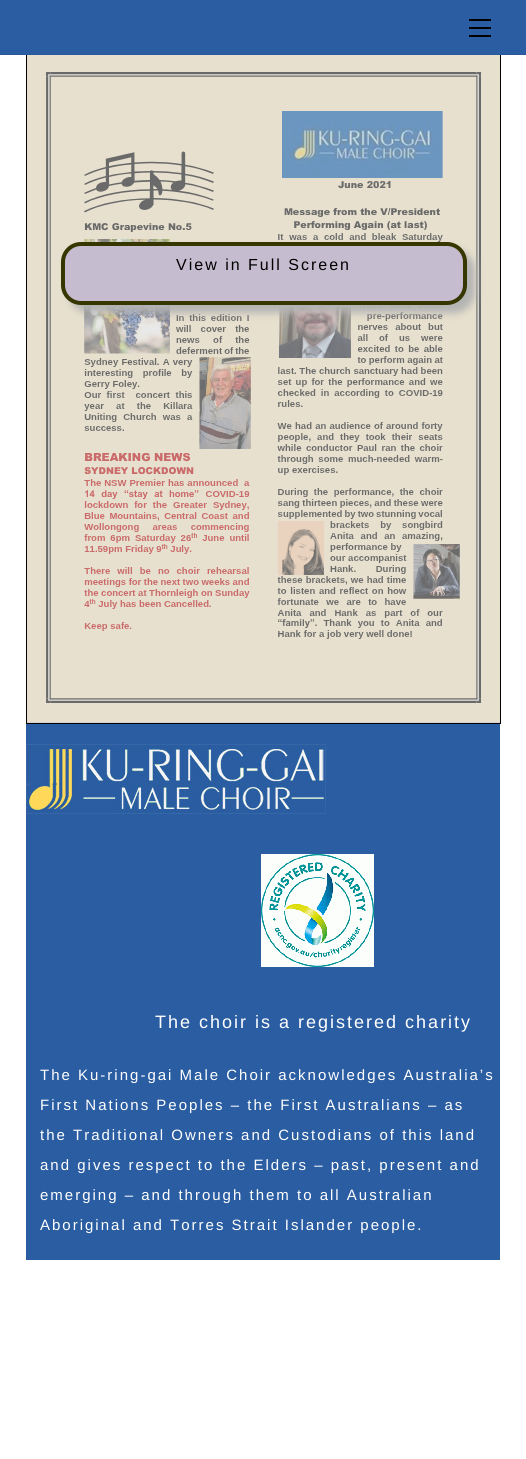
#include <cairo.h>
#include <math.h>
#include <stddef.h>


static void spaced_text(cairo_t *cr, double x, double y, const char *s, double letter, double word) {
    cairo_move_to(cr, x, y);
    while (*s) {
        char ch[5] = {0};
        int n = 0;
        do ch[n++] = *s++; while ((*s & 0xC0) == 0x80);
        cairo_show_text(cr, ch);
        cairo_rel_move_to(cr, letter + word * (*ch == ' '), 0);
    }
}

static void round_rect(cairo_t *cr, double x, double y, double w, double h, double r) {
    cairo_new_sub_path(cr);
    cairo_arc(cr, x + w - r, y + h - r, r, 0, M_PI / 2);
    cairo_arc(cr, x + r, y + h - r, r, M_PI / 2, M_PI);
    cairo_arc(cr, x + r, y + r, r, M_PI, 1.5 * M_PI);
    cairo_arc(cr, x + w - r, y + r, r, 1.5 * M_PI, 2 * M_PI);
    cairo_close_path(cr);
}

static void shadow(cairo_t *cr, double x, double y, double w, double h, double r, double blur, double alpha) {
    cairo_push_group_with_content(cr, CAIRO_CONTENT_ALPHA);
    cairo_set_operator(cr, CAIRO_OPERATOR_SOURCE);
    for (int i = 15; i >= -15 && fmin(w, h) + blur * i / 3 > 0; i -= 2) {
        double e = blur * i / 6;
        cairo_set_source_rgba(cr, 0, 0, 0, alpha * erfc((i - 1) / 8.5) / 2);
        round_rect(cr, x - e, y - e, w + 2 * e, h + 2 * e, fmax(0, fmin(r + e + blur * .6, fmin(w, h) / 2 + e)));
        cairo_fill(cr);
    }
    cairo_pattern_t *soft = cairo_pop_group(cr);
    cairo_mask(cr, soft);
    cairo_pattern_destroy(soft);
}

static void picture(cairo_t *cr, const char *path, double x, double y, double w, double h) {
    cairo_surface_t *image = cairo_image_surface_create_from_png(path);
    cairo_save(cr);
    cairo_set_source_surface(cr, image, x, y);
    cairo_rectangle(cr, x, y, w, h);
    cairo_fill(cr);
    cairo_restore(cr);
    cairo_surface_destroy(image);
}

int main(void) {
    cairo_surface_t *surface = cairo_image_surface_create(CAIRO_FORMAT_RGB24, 526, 1459);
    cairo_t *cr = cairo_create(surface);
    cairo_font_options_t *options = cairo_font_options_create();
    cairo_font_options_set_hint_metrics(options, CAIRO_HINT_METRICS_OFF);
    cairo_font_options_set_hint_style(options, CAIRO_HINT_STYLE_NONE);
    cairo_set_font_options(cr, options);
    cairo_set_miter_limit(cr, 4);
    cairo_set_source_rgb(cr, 1, 1, 1);
    cairo_paint(cr);
    cairo_set_source_rgb(cr, 0.827, 0.827, 0.827);
    cairo_rectangle(cr, 27, 722, 473, 1);
    cairo_fill(cr);
    cairo_rectangle(cr, 26.5, 52.5, 474, 671);
    cairo_set_source_rgb(cr, 0, 0, 0);
    cairo_set_line_width(cr, 1);
    cairo_stroke(cr);
    cairo_set_source_rgb(cr, 0.165, 0.365, 0.631);
    cairo_rectangle(cr, 0, 0, 526, 54);
    cairo_fill(cr);
    cairo_set_source_rgb(cr, 0.157, 0.345, 0.6);
    cairo_rectangle(cr, 0, 54, 526, 1);
    cairo_fill(cr);
    cairo_set_source_rgb(cr, 0, 0, 0);
    cairo_rectangle(cr, 469, 35, 22, 2);
    cairo_fill(cr);
    cairo_rectangle(cr, 469, 19, 22, 2);
    cairo_fill(cr);
    cairo_rectangle(cr, 469, 27, 22, 2);
    cairo_fill(cr);
    picture(cr, "img1.png", 27, 55, 473, 667);
    cairo_set_source_rgb(cr, 0.702, 0.702, 0.702);
    shadow(cr, 69, 250, 406, 63, 20, 4, 1);
    cairo_set_source_rgb(cr, 0.773, 0.741, 0.812);
    round_rect(cr, 63, 244, 402, 59, 18);
    cairo_fill_preserve(cr);
    cairo_set_source_rgb(cr, 0.212, 0.212, 0);
    cairo_set_line_width(cr, 4);
    cairo_stroke(cr);
    cairo_select_font_face(cr, "Liberation Sans", CAIRO_FONT_SLANT_NORMAL, CAIRO_FONT_WEIGHT_NORMAL);
    cairo_set_font_size(cr, 16);
    cairo_set_source_rgb(cr, 0, 0, 0);
    spaced_text(cr, 176, 270, "View in Full Screen", 2, 0);
    cairo_set_source_rgb(cr, 0.165, 0.365, 0.631);
    cairo_rectangle(cr, 26, 724, 474, 536);
    cairo_fill(cr);
    picture(cr, "img2.png", 26, 744, 300, 70);
    picture(cr, "img3.png", 261, 854, 113, 113);
    cairo_set_font_size(cr, 18);
    cairo_set_source_rgb(cr, 1, 1, 1);
    spaced_text(cr, 155, 1028, "The choir is a registered charity", 2, 0);
    cairo_set_font_size(cr, 15);
    spaced_text(cr, 40, 1080, "The Ku-ring-gai Male Choir acknowledges Australia’s", 2, 0);
    spaced_text(cr, 40, 1110, "First Nations Peoples – the First Australians – as", 2, 0);
    spaced_text(cr, 40, 1140, "the Traditional Owners and Custodians of this land", 2, 0);
    spaced_text(cr, 40, 1170, "and gives respect to the Elders – past, present and", 2, 0);
    spaced_text(cr, 40, 1200, "emerging – and through them to all Australian", 2, 0);
    spaced_text(cr, 40, 1230, "Aboriginal and Torres Strait Islander people.", 2, 0);
    cairo_surface_write_to_png(surface, "page.png");
    cairo_font_options_destroy(options);
    cairo_destroy(cr);
    cairo_surface_destroy(surface);
    return 0;
}
